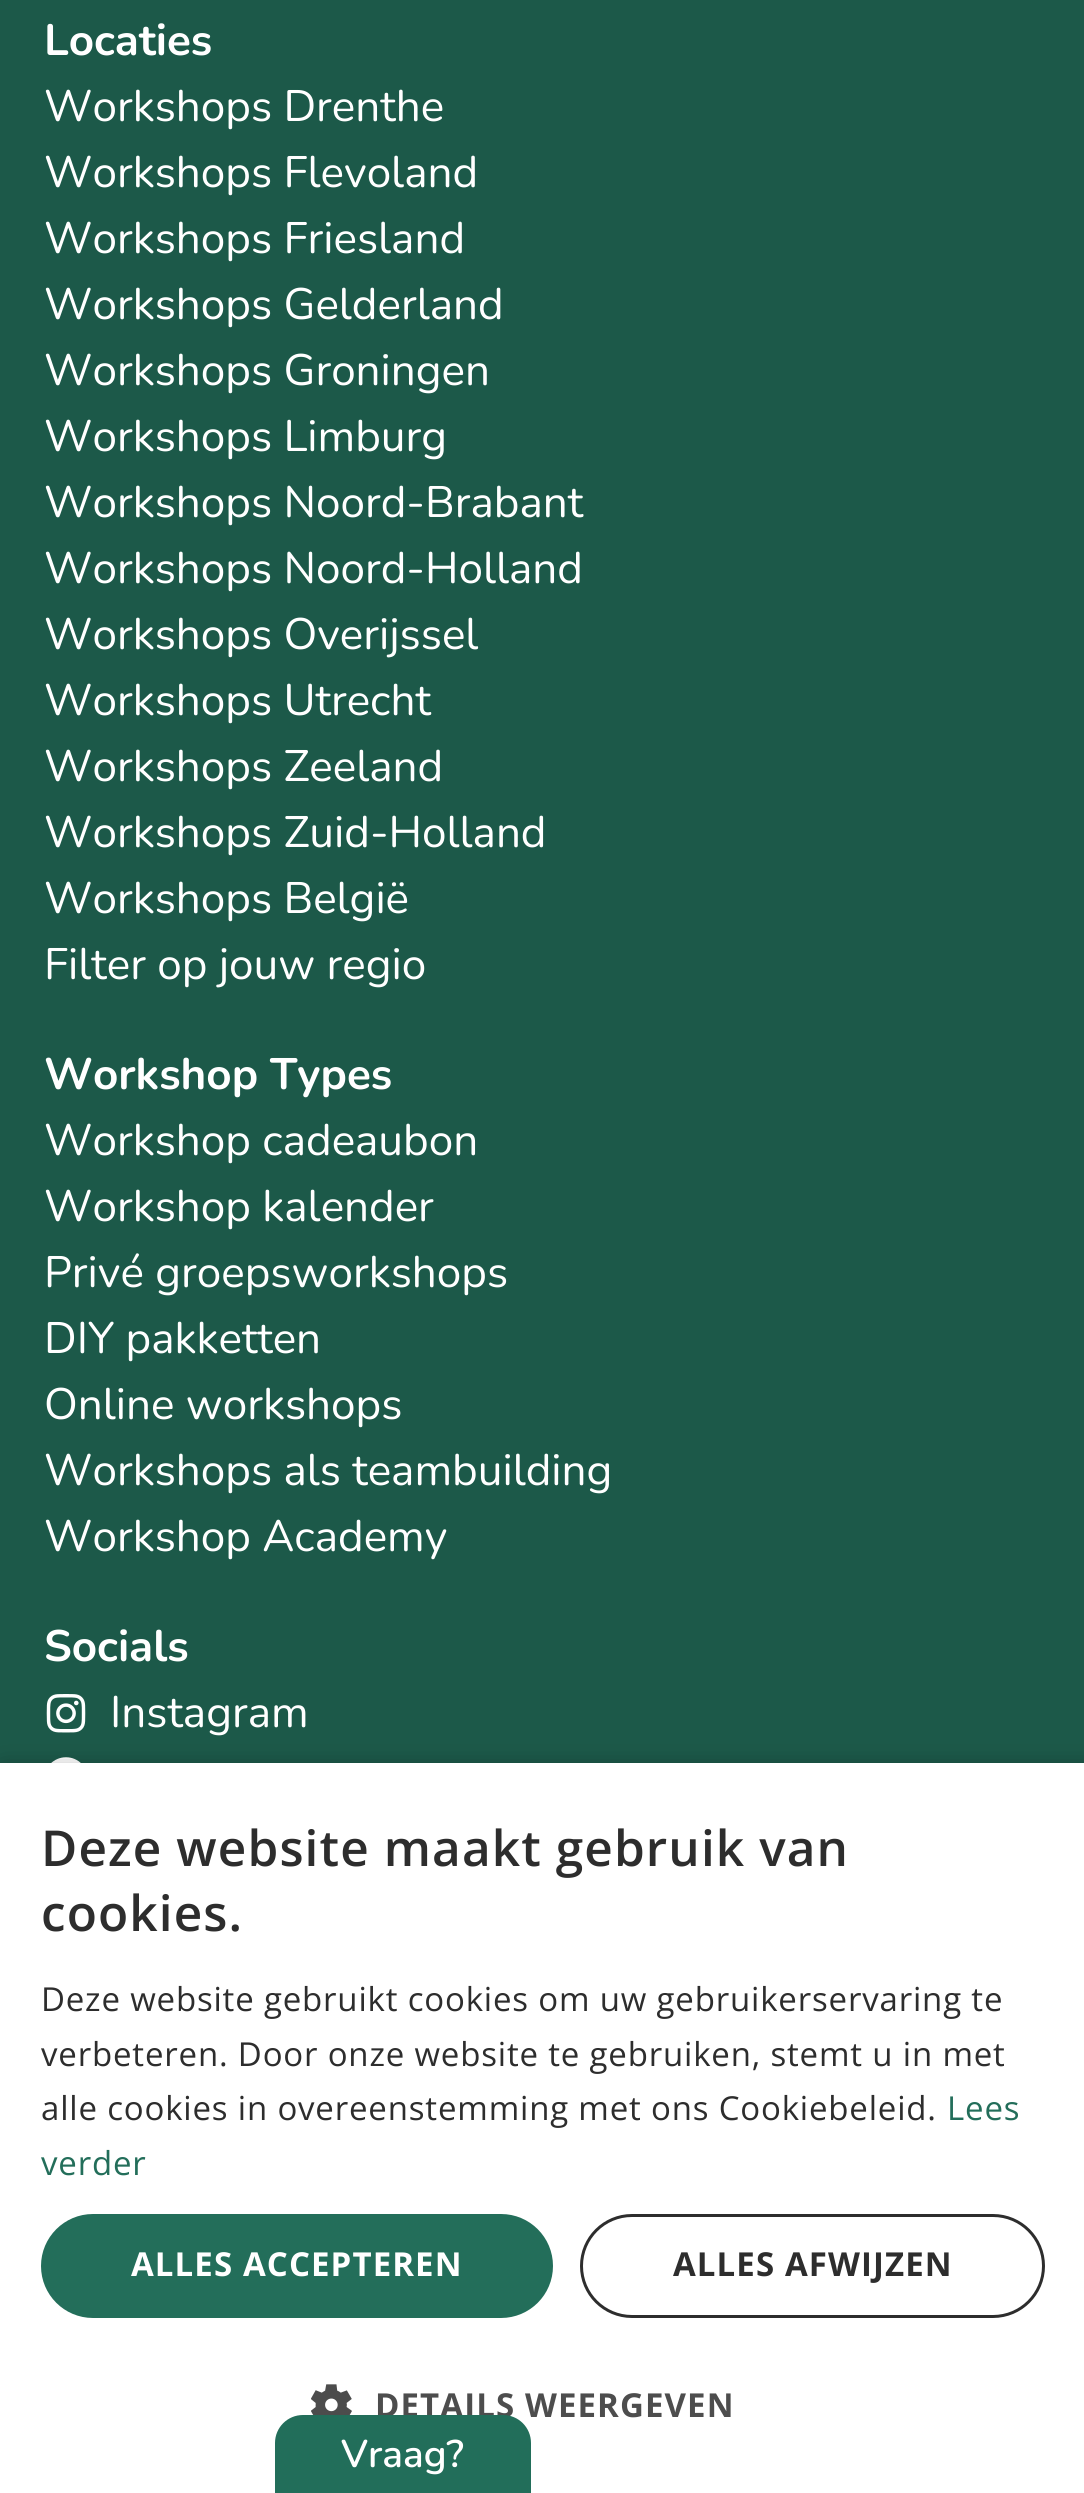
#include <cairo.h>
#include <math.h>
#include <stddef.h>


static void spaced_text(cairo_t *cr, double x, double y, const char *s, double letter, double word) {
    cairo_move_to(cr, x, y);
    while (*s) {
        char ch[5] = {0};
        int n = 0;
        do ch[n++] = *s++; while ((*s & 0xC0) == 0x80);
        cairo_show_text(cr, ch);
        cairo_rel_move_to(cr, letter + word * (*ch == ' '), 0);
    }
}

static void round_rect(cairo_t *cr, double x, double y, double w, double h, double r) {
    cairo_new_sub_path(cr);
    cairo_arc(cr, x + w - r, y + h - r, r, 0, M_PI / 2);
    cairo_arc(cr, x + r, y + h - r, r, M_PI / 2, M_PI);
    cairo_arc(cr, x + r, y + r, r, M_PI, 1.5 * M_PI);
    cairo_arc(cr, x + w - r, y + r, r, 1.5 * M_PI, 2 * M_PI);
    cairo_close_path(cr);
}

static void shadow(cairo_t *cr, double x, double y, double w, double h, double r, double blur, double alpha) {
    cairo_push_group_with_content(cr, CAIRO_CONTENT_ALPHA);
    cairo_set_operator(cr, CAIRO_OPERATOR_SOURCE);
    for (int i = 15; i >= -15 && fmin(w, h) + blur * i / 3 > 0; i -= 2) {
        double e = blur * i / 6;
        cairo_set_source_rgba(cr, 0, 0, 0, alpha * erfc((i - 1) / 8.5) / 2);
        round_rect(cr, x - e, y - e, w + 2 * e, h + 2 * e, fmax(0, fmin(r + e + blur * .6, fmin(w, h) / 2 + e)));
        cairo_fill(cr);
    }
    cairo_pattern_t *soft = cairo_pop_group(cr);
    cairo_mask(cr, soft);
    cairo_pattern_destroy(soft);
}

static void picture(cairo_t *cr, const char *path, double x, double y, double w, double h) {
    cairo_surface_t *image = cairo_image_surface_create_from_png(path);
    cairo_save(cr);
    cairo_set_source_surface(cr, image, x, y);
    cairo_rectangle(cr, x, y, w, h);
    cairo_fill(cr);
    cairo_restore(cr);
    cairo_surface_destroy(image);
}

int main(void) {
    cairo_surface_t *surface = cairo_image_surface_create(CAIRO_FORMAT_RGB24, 1084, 2493);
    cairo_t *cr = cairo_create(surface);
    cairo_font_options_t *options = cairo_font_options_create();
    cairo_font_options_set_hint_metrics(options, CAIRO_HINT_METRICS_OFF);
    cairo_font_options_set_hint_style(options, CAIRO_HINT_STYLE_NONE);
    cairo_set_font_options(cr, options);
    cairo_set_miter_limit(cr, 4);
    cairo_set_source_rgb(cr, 0.11, 0.349, 0.286);
    cairo_paint(cr);
    cairo_select_font_face(cr, "Nunito", CAIRO_FONT_SLANT_NORMAL, CAIRO_FONT_WEIGHT_BOLD);
    cairo_set_font_size(cr, 44);
    cairo_set_source_rgb(cr, 1, 1, 1);
    cairo_move_to(cr, 44, 55);
    cairo_show_text(cr, "Locaties");
    cairo_select_font_face(cr, "Nunito", CAIRO_FONT_SLANT_NORMAL, CAIRO_FONT_WEIGHT_NORMAL);
    cairo_move_to(cr, 44, 121);
    cairo_show_text(cr, "Workshops Drenthe");
    cairo_move_to(cr, 44, 187);
    cairo_show_text(cr, "Workshops Flevoland");
    cairo_move_to(cr, 44, 253);
    cairo_show_text(cr, "Workshops Friesland");
    cairo_move_to(cr, 44, 319);
    cairo_show_text(cr, "Workshops Gelderland");
    cairo_move_to(cr, 44, 385);
    cairo_show_text(cr, "Workshops Groningen");
    cairo_move_to(cr, 44, 451);
    cairo_show_text(cr, "Workshops Limburg");
    cairo_move_to(cr, 44, 517);
    cairo_show_text(cr, "Workshops Noord-Brabant");
    cairo_move_to(cr, 44, 583);
    cairo_show_text(cr, "Workshops Noord-Holland");
    cairo_move_to(cr, 44, 649);
    cairo_show_text(cr, "Workshops Overijssel");
    cairo_move_to(cr, 44, 715);
    cairo_show_text(cr, "Workshops Utrecht");
    cairo_move_to(cr, 44, 781);
    cairo_show_text(cr, "Workshops Zeeland");
    cairo_move_to(cr, 44, 847);
    cairo_show_text(cr, "Workshops Zuid-Holland");
    cairo_move_to(cr, 44, 913);
    cairo_show_text(cr, "Workshops België");
    cairo_move_to(cr, 44, 979);
    cairo_show_text(cr, "Filter op jouw regio");
    cairo_select_font_face(cr, "Nunito", CAIRO_FONT_SLANT_NORMAL, CAIRO_FONT_WEIGHT_BOLD);
    cairo_move_to(cr, 44, 1089);
    cairo_show_text(cr, "Workshop Types");
    cairo_select_font_face(cr, "Nunito", CAIRO_FONT_SLANT_NORMAL, CAIRO_FONT_WEIGHT_NORMAL);
    cairo_move_to(cr, 44, 1155);
    cairo_show_text(cr, "Workshop cadeaubon");
    cairo_move_to(cr, 44, 1221);
    cairo_show_text(cr, "Workshop kalender");
    cairo_move_to(cr, 44, 1287);
    cairo_show_text(cr, "Privé groepsworkshops");
    cairo_move_to(cr, 44, 1353);
    cairo_show_text(cr, "DIY pakketten");
    cairo_move_to(cr, 44, 1419);
    cairo_show_text(cr, "Online workshops");
    cairo_move_to(cr, 44, 1485);
    cairo_show_text(cr, "Workshops als teambuilding");
    cairo_move_to(cr, 44, 1551);
    cairo_show_text(cr, "Workshop Academy");
    cairo_select_font_face(cr, "Nunito", CAIRO_FONT_SLANT_NORMAL, CAIRO_FONT_WEIGHT_BOLD);
    cairo_move_to(cr, 44, 1661);
    cairo_show_text(cr, "Socials");
    picture(cr, "img1.png", 46, 1694, 40, 39);
    cairo_select_font_face(cr, "Nunito", CAIRO_FONT_SLANT_NORMAL, CAIRO_FONT_WEIGHT_NORMAL);
    cairo_move_to(cr, 110, 1727);
    cairo_show_text(cr, "Instagram");
    picture(cr, "img2.png", 51, 1757, 30, 6);
    cairo_set_source_rgb(cr, 0, 0, 0);
    shadow(cr, 3, 1768, 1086, 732, 0, 11, 0.35);
    cairo_set_source_rgb(cr, 1, 1, 1);
    cairo_rectangle(cr, 0, 1763, 1084, 730);
    cairo_fill(cr);
    cairo_select_font_face(cr, "Open Sans SemiBold", CAIRO_FONT_SLANT_NORMAL, CAIRO_FONT_WEIGHT_NORMAL);
    cairo_set_font_size(cr, 49.5);
    cairo_set_source_rgb(cr, 0.176, 0.176, 0.176);
    spaced_text(cr, 41, 1866, "Deze website maakt gebruik van", 1.1, 0);
    spaced_text(cr, 41, 1931, "cookies.", 1.1, 0);
    cairo_select_font_face(cr, "Open Sans", CAIRO_FONT_SLANT_NORMAL, CAIRO_FONT_WEIGHT_NORMAL);
    cairo_set_font_size(cr, 33);
    spaced_text(cr, 41, 2011, "Deze website gebruikt cookies om uw gebruikerservaring te", 0.82, 0);
    spaced_text(cr, 41, 2066, "verbeteren. Door onze website te gebruiken, stemt u in met", 0.82, 0);
    spaced_text(cr, 41, 2120, "alle cookies in overeenstemming met ons Cookiebeleid.", 0.82, 0);
    cairo_set_source_rgb(cr, 0.137, 0.431, 0.353);
    spaced_text(cr, 947, 2120, "Lees", 0.82, 0);
    spaced_text(cr, 41, 2175, "verder", 0.82, 0);
    round_rect(cr, 41, 2214, 512, 104, 52);
    cairo_fill(cr);
    cairo_select_font_face(cr, "Open Sans", CAIRO_FONT_SLANT_NORMAL, CAIRO_FONT_WEIGHT_BOLD);
    cairo_set_source_rgb(cr, 1, 1, 1);
    spaced_text(cr, 131, 2276, "ALLES ACCEPTEREN", 1.1, 0);
    round_rect(cr, 581.5, 2215.5, 462, 101, 50.5);
    cairo_set_source_rgb(cr, 0.176, 0.176, 0.176);
    cairo_set_line_width(cr, 3);
    cairo_stroke(cr);
    spaced_text(cr, 673, 2276, "ALLES AFWIJZEN", 1.1, 0);
    picture(cr, "img3.png", 311, 2384, 41, 31);
    cairo_set_source_rgb(cr, 0.302, 0.302, 0.302);
    spaced_text(cr, 375, 2417, "DETAILS WEERGEVEN", 1.1, 0);
    cairo_set_source_rgb(cr, 0.133, 0.431, 0.353);
    cairo_new_path(cr);
    cairo_move_to(cr, 303, 2415);
    cairo_line_to(cr, 503, 2415);
    cairo_curve_to(cr, 518.5, 2415, 531, 2427.5, 531, 2443);
    cairo_line_to(cr, 531, 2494);
    cairo_line_to(cr, 275, 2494);
    cairo_line_to(cr, 275, 2443);
    cairo_curve_to(cr, 275, 2427.5, 287.5, 2415, 303, 2415);
    cairo_close_path(cr);
    cairo_fill(cr);
    cairo_select_font_face(cr, "Nunito SemiBold", CAIRO_FONT_SLANT_NORMAL, CAIRO_FONT_WEIGHT_NORMAL);
    cairo_set_font_size(cr, 38.5);
    cairo_set_source_rgb(cr, 1, 1, 1);
    cairo_move_to(cr, 341, 2467);
    cairo_show_text(cr, "Vraag?");
    cairo_surface_write_to_png(surface, "page.png");
    cairo_font_options_destroy(options);
    cairo_destroy(cr);
    cairo_surface_destroy(surface);
    return 0;
}
